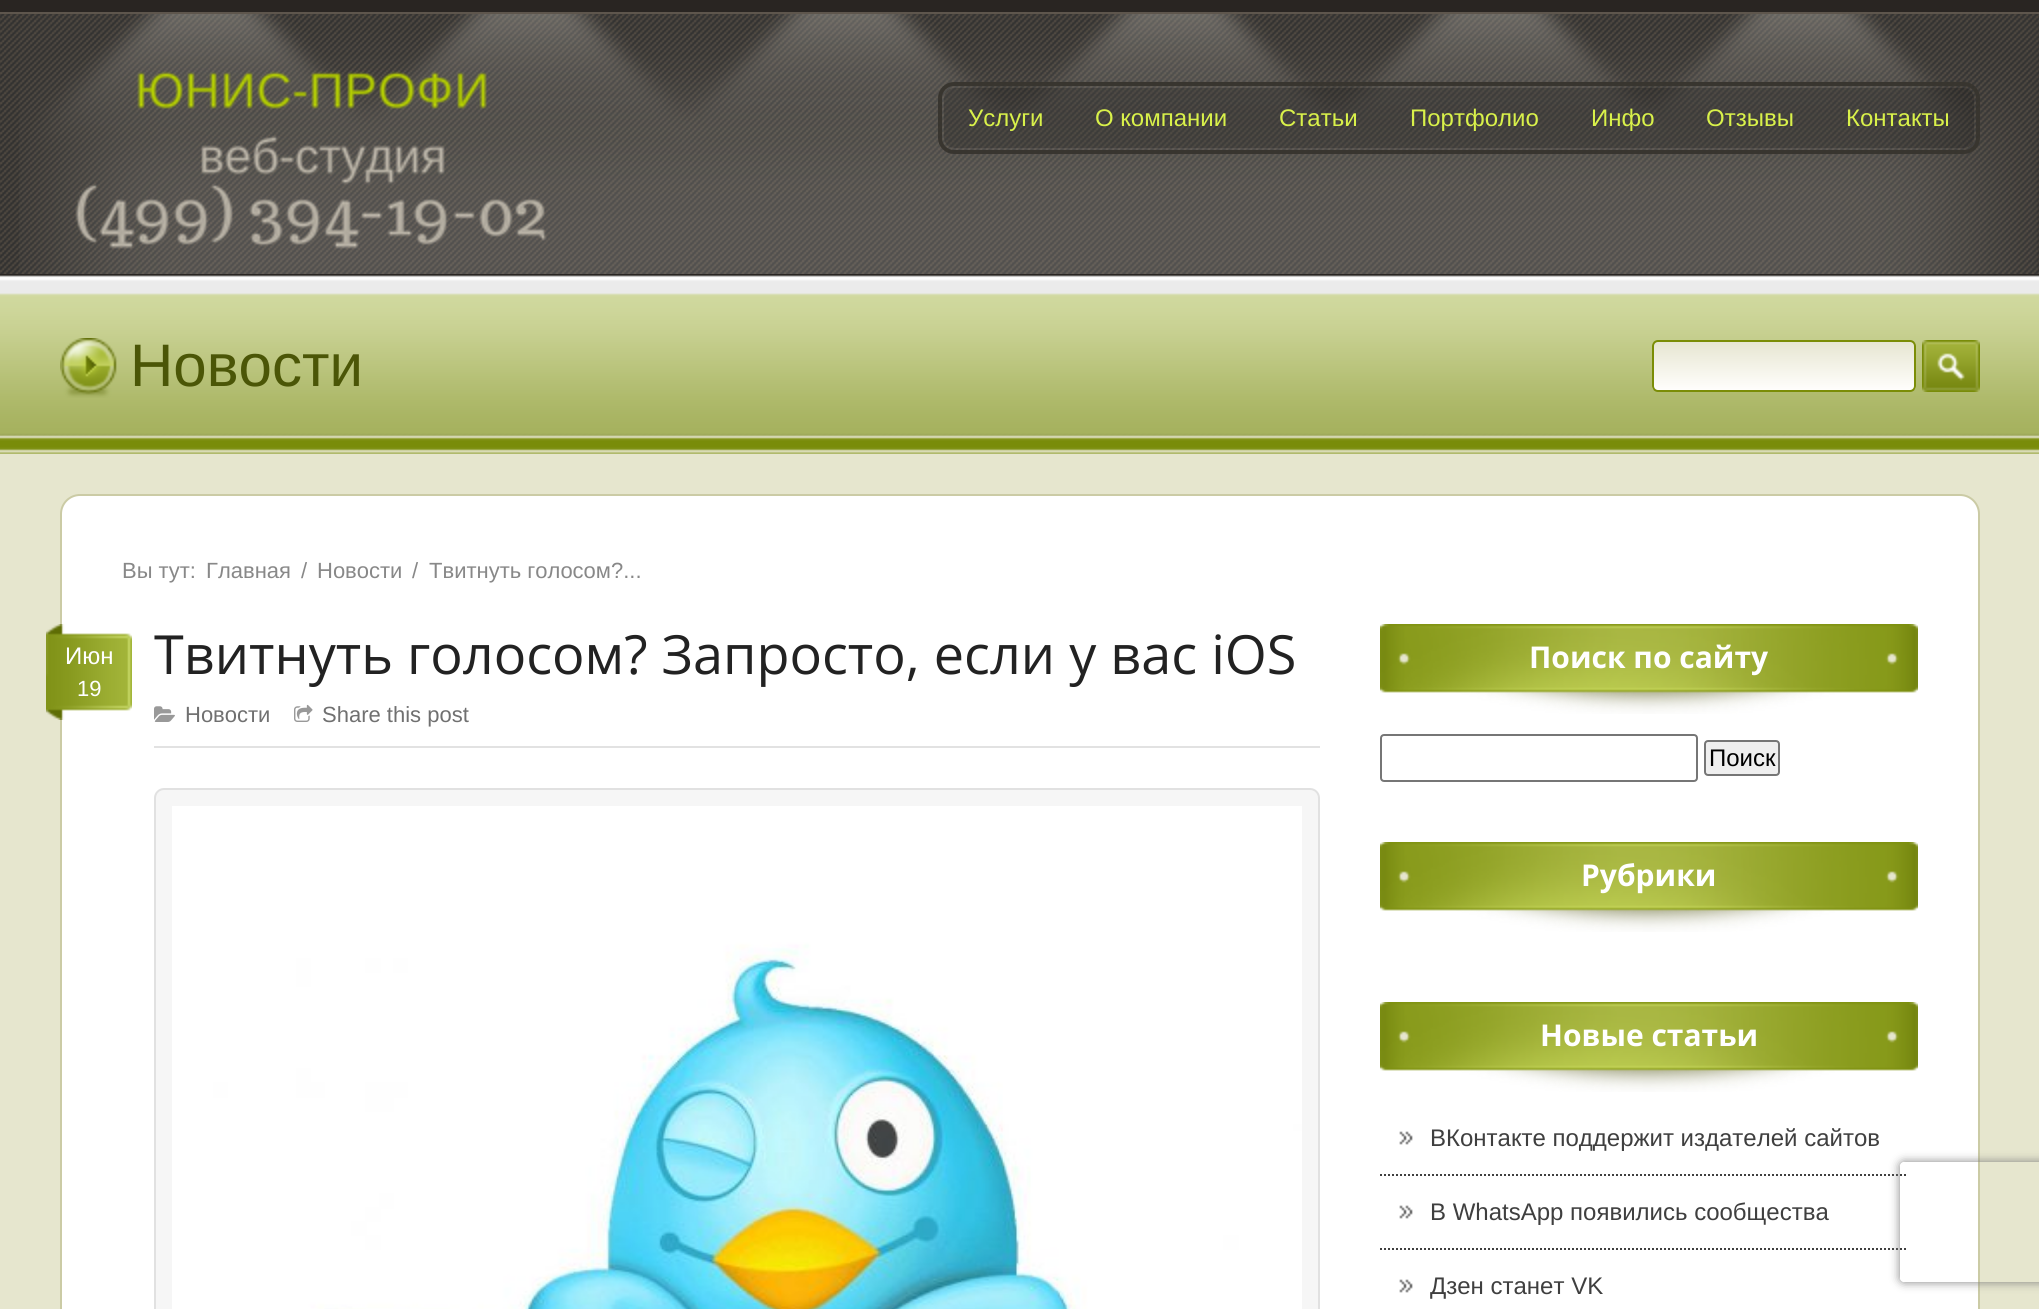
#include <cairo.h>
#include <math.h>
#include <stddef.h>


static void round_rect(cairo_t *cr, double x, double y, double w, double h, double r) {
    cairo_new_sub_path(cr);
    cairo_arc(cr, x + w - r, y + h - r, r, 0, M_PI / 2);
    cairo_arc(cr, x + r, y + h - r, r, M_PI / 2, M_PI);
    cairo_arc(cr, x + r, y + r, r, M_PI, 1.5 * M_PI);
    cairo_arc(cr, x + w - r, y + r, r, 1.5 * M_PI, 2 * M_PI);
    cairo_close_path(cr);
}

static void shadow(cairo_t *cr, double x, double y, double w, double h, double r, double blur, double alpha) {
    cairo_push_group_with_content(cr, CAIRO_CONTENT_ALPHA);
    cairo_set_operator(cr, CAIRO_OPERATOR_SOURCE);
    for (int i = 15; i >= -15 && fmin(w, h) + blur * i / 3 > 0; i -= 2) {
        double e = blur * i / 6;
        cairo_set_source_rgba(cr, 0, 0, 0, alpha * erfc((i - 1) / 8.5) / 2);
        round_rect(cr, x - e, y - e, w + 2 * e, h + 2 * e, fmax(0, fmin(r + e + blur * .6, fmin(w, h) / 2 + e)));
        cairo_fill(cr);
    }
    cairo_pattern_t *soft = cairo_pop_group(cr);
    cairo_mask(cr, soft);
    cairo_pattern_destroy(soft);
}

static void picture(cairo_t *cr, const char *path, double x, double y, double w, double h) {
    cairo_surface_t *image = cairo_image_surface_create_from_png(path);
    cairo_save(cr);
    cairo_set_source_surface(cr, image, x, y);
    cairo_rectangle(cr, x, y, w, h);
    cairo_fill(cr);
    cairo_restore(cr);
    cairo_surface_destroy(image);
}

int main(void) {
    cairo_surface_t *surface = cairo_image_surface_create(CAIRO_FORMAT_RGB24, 2039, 1309);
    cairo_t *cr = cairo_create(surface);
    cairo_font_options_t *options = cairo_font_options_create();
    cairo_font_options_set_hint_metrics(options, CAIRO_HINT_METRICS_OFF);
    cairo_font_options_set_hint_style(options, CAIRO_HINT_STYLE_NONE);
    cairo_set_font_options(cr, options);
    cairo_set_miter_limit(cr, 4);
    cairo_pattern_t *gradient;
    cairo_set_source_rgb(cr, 1, 1, 1);
    cairo_paint(cr);
    picture(cr, "img1.png", 0, 14, 2039, 423);
    cairo_set_source_rgb(cr, 0.161, 0.145, 0.133);
    cairo_rectangle(cr, 0, 0, 2039, 12);
    cairo_fill(cr);
    picture(cr, "img2.png", 19, 14, 2018, 423);
    cairo_set_source_rgb(cr, 0.369, 0.337, 0.302);
    cairo_rectangle(cr, 0, 12, 2039, 2);
    cairo_fill(cr);
    picture(cr, "img3.png", 0, 274, 2039, 180);
    picture(cr, "img4.png", 75, 71, 472, 178);
    round_rect(cr, 940, 84, 1038, 68, 14);
    cairo_set_source_rgb(cr, 0.22, 0.208, 0.184);
    cairo_set_line_width(cr, 4);
    cairo_stroke(cr);
    picture(cr, "img5.png", 944, 88, 1030, 60);
    cairo_select_font_face(cr, "Liberation Sans", CAIRO_FONT_SLANT_NORMAL, CAIRO_FONT_WEIGHT_NORMAL);
    cairo_set_font_size(cr, 24);
    cairo_set_source_rgb(cr, 0.851, 0.945, 0.29);
    cairo_move_to(cr, 968, 126);
    cairo_show_text(cr, "Услуги");
    cairo_move_to(cr, 1095, 126);
    cairo_show_text(cr, "О компании");
    cairo_move_to(cr, 1279, 126);
    cairo_show_text(cr, "Статьи");
    cairo_move_to(cr, 1410, 126);
    cairo_show_text(cr, "Портфолио");
    cairo_move_to(cr, 1591, 126);
    cairo_show_text(cr, "Инфо");
    cairo_move_to(cr, 1706, 126);
    cairo_show_text(cr, "Отзывы");
    cairo_move_to(cr, 1846, 126);
    cairo_show_text(cr, "Контакты");
    picture(cr, "img6.png", 60, 338, 57, 60);
    cairo_set_font_size(cr, 60);
    cairo_set_source_rgb(cr, 0.294, 0.337, 0.031);
    cairo_move_to(cr, 130, 386);
    cairo_show_text(cr, "Новости");
    cairo_save(cr);
    round_rect(cr, 1652, 340, 264, 52, 6);
    cairo_clip(cr);
    gradient = cairo_pattern_create_linear(1654, 342, 1654, 390);
    cairo_pattern_add_color_stop_rgba(gradient, 0, 0.906, 0.902, 0.824, 1);
    cairo_pattern_add_color_stop_rgba(gradient, 1, 1, 0.996, 0.988, 1);
    cairo_set_source(cr, gradient);
    cairo_pattern_destroy(gradient);
    cairo_rectangle(cr, 1652, 342, 264, 48);
    cairo_fill(cr);
    cairo_restore(cr);
    round_rect(cr, 1653, 341, 262, 50, 5);
    cairo_set_source_rgb(cr, 0.482, 0.553, 0.027);
    cairo_set_line_width(cr, 2);
    cairo_stroke(cr);
    picture(cr, "img7.png", 1922, 340, 58, 52);
    cairo_set_source_rgb(cr, 0.902, 0.902, 0.808);
    cairo_rectangle(cr, 0, 454, 2039, 855);
    cairo_fill(cr);
    cairo_set_source_rgb(cr, 1, 1, 1);
    round_rect(cr, 61, 495, 1918, 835, 19);
    cairo_fill_preserve(cr);
    cairo_set_source_rgb(cr, 0.796, 0.796, 0.647);
    cairo_stroke(cr);
    cairo_set_font_size(cr, 22);
    cairo_set_source_rgb(cr, 0.533, 0.533, 0.533);
    cairo_move_to(cr, 122, 578);
    cairo_show_text(cr, "Вы тут:");
    cairo_move_to(cr, 206, 578);
    cairo_show_text(cr, "Главная");
    cairo_move_to(cr, 301, 578);
    cairo_show_text(cr, "/");
    cairo_move_to(cr, 317, 578);
    cairo_show_text(cr, "Новости");
    cairo_move_to(cr, 412, 578);
    cairo_show_text(cr, "/");
    cairo_move_to(cr, 429, 578);
    cairo_show_text(cr, "Твитнуть голосом?...");
    picture(cr, "img8.png", 46, 624, 86, 96);
    cairo_set_font_size(cr, 24);
    cairo_set_source_rgb(cr, 1, 1, 1);
    cairo_move_to(cr, 65, 664);
    cairo_show_text(cr, "Июн");
    cairo_set_font_size(cr, 22);
    cairo_move_to(cr, 77, 696);
    cairo_show_text(cr, "19");
    cairo_set_source_rgb(cr, 0.886, 0.886, 0.886);
    cairo_rectangle(cr, 154, 746, 1166, 2);
    cairo_fill(cr);
    cairo_select_font_face(cr, "Open Sans", CAIRO_FONT_SLANT_NORMAL, CAIRO_FONT_WEIGHT_NORMAL);
    cairo_set_font_size(cr, 54);
    cairo_set_source_rgb(cr, 0.133, 0.133, 0.133);
    cairo_move_to(cr, 154, 674);
    cairo_show_text(cr, "Твитнуть голосом? Запросто, если у вас iOS");
    picture(cr, "img9.png", 154, 706, 21, 16);
    cairo_select_font_face(cr, "Liberation Sans", CAIRO_FONT_SLANT_NORMAL, CAIRO_FONT_WEIGHT_NORMAL);
    cairo_set_font_size(cr, 22);
    cairo_set_source_rgb(cr, 0.439, 0.439, 0.439);
    cairo_move_to(cr, 185, 722);
    cairo_show_text(cr, "Новости");
    picture(cr, "img10.png", 294, 704, 19, 18);
    cairo_move_to(cr, 322, 722);
    cairo_show_text(cr, "Share this post");
    cairo_set_source_rgb(cr, 0.961, 0.961, 0.961);
    round_rect(cr, 155, 789, 1164, 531, 9);
    cairo_fill_preserve(cr);
    cairo_set_source_rgb(cr, 0.882, 0.882, 0.882);
    cairo_stroke(cr);
    picture(cr, "img11.png", 172, 806, 1130, 503);
    picture(cr, "img12.png", 1380, 624, 538, 90);
    cairo_select_font_face(cr, "Open Sans", CAIRO_FONT_SLANT_NORMAL, CAIRO_FONT_WEIGHT_BOLD);
    cairo_set_font_size(cr, 30);
    cairo_set_source_rgb(cr, 1, 1, 1);
    cairo_move_to(cr, 1529, 668);
    cairo_show_text(cr, "Поиск по сайту");
    round_rect(cr, 1381, 735, 316, 46, 3);
    cairo_set_source_rgb(cr, 0.463, 0.463, 0.463);
    cairo_stroke(cr);
    cairo_set_source_rgb(cr, 0.937, 0.937, 0.937);
    round_rect(cr, 1705, 741, 74, 34, 3);
    cairo_fill_preserve(cr);
    cairo_set_source_rgb(cr, 0.463, 0.463, 0.463);
    cairo_stroke(cr);
    cairo_select_font_face(cr, "Liberation Sans", CAIRO_FONT_SLANT_NORMAL, CAIRO_FONT_WEIGHT_NORMAL);
    cairo_set_font_size(cr, 24);
    cairo_set_source_rgb(cr, 0, 0, 0);
    cairo_move_to(cr, 1709, 766);
    cairo_show_text(cr, "Поиск");
    picture(cr, "img12.png", 1380, 842, 538, 90);
    cairo_select_font_face(cr, "Open Sans", CAIRO_FONT_SLANT_NORMAL, CAIRO_FONT_WEIGHT_BOLD);
    cairo_set_font_size(cr, 30);
    cairo_set_source_rgb(cr, 1, 1, 1);
    cairo_move_to(cr, 1581, 886);
    cairo_show_text(cr, "Рубрики");
    picture(cr, "img12.png", 1380, 1002, 538, 90);
    cairo_move_to(cr, 1540, 1046);
    cairo_show_text(cr, "Новые статьи");
    picture(cr, "img13.png", 1399, 1131, 14, 14);
    cairo_new_path(cr);
    cairo_move_to(cr, 1380, 1175);
    cairo_line_to(cr, 1908, 1175);
    cairo_set_source_rgb(cr, 0.247, 0.247, 0.247);
    cairo_set_dash(cr, (double[]){2, 2}, 2, 0);
    cairo_stroke(cr);
    cairo_select_font_face(cr, "Liberation Sans", CAIRO_FONT_SLANT_NORMAL, CAIRO_FONT_WEIGHT_NORMAL);
    cairo_set_font_size(cr, 24);
    cairo_move_to(cr, 1430, 1146);
    cairo_show_text(cr, "ВКонтакте поддержит издателей сайтов");
    picture(cr, "img13.png", 1399, 1205, 14, 14);
    cairo_new_path(cr);
    cairo_move_to(cr, 1380, 1249);
    cairo_line_to(cr, 1908, 1249);
    cairo_stroke(cr);
    cairo_move_to(cr, 1430, 1220);
    cairo_show_text(cr, "В WhatsApp появились сообщества");
    picture(cr, "img13.png", 1399, 1279, 14, 14);
    cairo_move_to(cr, 1430, 1294);
    cairo_show_text(cr, "Дзен станет VK");
    cairo_save(cr);
    cairo_set_fill_rule(cr, CAIRO_FILL_RULE_EVEN_ODD);
    cairo_new_path(cr);
    cairo_move_to(cr, 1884, 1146);
    cairo_line_to(cr, 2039, 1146);
    cairo_line_to(cr, 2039, 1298);
    cairo_line_to(cr, 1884, 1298);
    cairo_close_path(cr);
    cairo_move_to(cr, 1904, 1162);
    cairo_line_to(cr, 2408, 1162);
    cairo_curve_to(cr, 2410, 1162, 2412, 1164, 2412, 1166);
    cairo_line_to(cr, 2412, 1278);
    cairo_curve_to(cr, 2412, 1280, 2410, 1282, 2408, 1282);
    cairo_line_to(cr, 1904, 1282);
    cairo_curve_to(cr, 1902, 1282, 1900, 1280, 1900, 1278);
    cairo_line_to(cr, 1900, 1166);
    cairo_curve_to(cr, 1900, 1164, 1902, 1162, 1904, 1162);
    cairo_close_path(cr);
    cairo_clip(cr);
    cairo_set_source_rgb(cr, 0.502, 0.502, 0.502);
    shadow(cr, 1900, 1162, 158, 120, 4, 5, 1);
    cairo_restore(cr);
    cairo_surface_write_to_png(surface, "page.png");
    cairo_font_options_destroy(options);
    cairo_destroy(cr);
    cairo_surface_destroy(surface);
    return 0;
}
